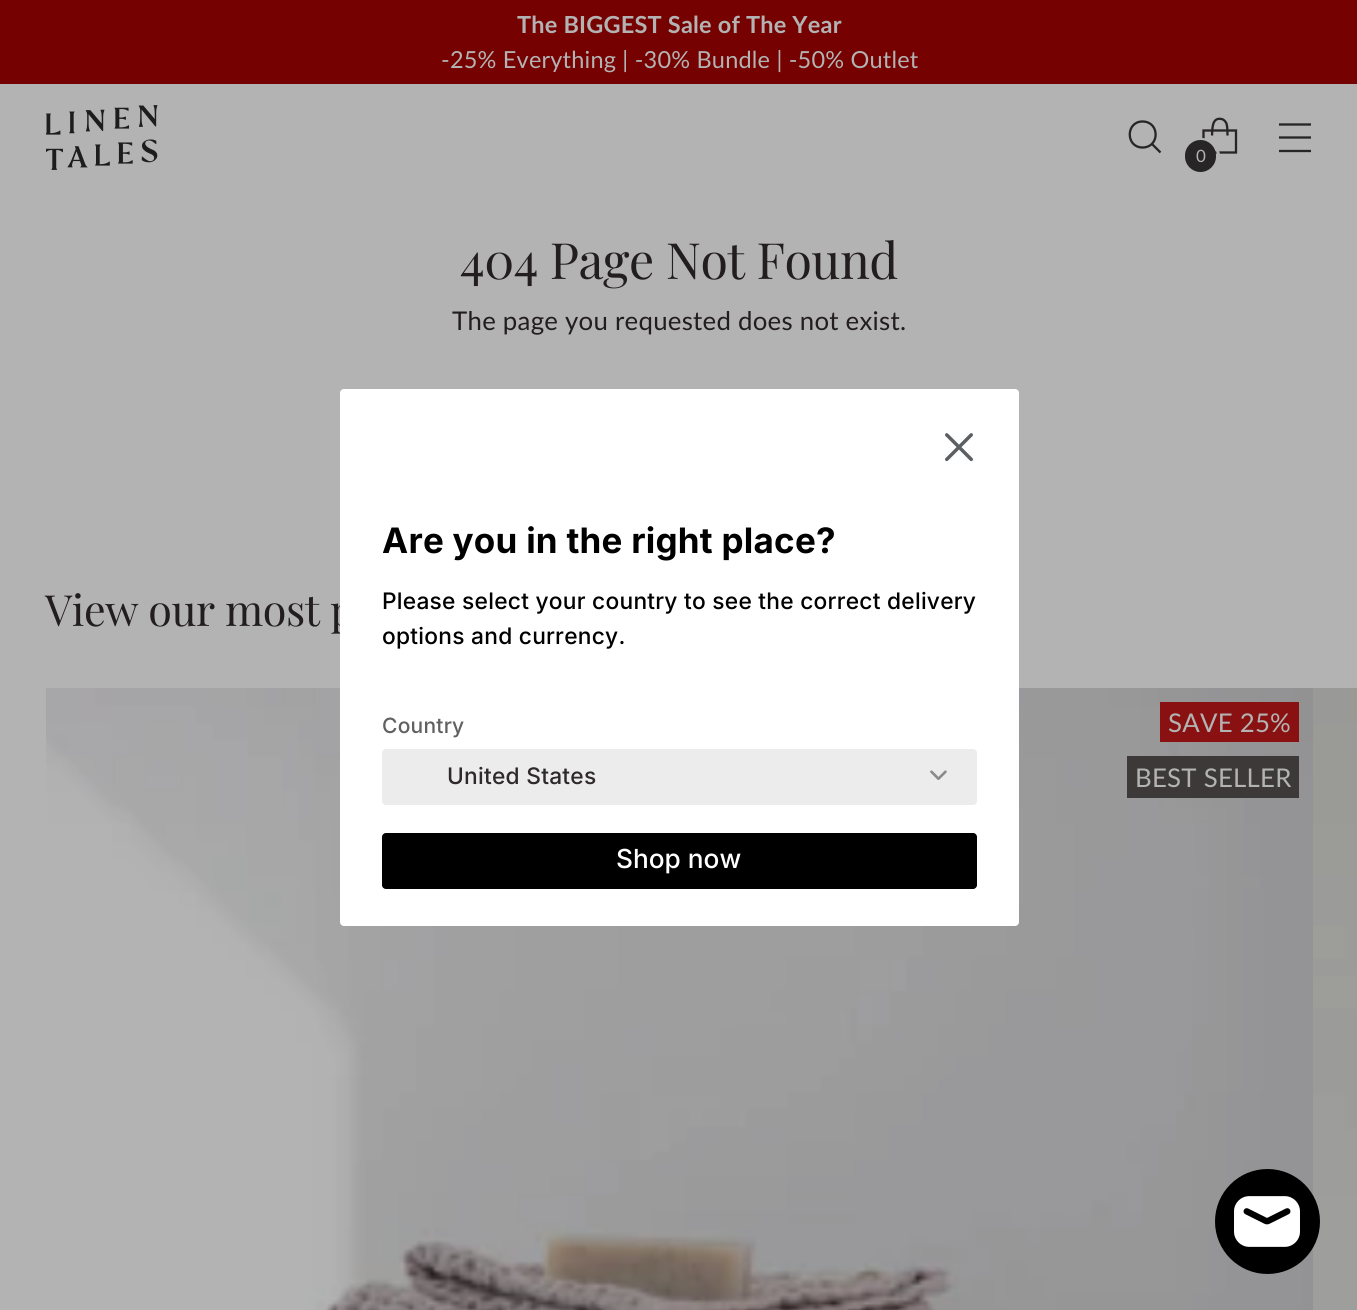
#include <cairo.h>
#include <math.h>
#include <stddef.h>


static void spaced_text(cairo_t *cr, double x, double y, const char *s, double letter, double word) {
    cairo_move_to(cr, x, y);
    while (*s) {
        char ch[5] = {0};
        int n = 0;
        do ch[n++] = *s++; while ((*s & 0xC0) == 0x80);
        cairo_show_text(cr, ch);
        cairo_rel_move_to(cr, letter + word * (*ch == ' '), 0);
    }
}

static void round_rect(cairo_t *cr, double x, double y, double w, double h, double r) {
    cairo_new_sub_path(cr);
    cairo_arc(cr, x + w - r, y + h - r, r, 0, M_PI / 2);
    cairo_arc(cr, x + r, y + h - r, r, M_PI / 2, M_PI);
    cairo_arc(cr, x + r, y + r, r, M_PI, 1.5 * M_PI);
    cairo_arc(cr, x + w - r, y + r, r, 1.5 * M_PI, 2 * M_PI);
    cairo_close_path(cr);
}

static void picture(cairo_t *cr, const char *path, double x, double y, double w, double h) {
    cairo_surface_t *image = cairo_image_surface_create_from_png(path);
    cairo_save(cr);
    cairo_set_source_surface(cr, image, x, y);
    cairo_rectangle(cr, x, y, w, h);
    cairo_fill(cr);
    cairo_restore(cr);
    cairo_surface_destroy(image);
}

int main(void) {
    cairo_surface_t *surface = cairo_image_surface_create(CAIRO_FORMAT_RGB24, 1357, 1310);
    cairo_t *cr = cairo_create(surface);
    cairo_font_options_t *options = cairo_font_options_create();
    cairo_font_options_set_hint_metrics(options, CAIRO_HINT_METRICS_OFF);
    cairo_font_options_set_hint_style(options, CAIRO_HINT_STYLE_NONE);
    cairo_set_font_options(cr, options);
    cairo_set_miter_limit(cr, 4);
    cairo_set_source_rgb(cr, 0.702, 0.702, 0.702);
    cairo_paint(cr);
    cairo_set_source_rgb(cr, 0.459, 0.004, 0);
    cairo_rectangle(cr, 0, 0, 1357, 84);
    cairo_fill(cr);
    cairo_select_font_face(cr, "Lato", CAIRO_FONT_SLANT_NORMAL, CAIRO_FONT_WEIGHT_BOLD);
    cairo_set_font_size(cr, 23.5);
    cairo_set_source_rgb(cr, 0.702, 0.702, 0.702);
    spaced_text(cr, 517, 33, "The BIGGEST Sale of The Year", 0.2, 0);
    cairo_select_font_face(cr, "Lato", CAIRO_FONT_SLANT_NORMAL, CAIRO_FONT_WEIGHT_NORMAL);
    spaced_text(cr, 441, 68, "-25% Everything | -30% Bundle | -50% Outlet", 0.2, 0);
    picture(cr, "img1.png", 46, 105, 112, 65);
    cairo_new_path(cr);
    cairo_move_to(cr, 1142.5, 147.5);
    cairo_curve_to(cr, 1160, 147.5, 1160, 121.5, 1142.5, 121.5);
    cairo_curve_to(cr, 1125.5, 121.5, 1125.5, 147.5, 1142.5, 147.5);
    cairo_close_path(cr);
    cairo_set_source_rgb(cr, 0.153, 0.145, 0.149);
    cairo_set_line_width(cr, 2.3);
    cairo_set_line_cap(cr, CAIRO_LINE_CAP_ROUND);
    cairo_stroke(cr);
    cairo_new_path(cr);
    cairo_move_to(cr, 1152, 144);
    cairo_line_to(cr, 1160.5, 152.5);
    cairo_set_line_cap(cr, CAIRO_LINE_CAP_BUTT);
    cairo_stroke(cr);
    cairo_new_path(cr);
    cairo_move_to(cr, 1279, 137.5);
    cairo_line_to(cr, 1311, 137.5);
    cairo_move_to(cr, 1279, 124.5);
    cairo_line_to(cr, 1311, 124.5);
    cairo_move_to(cr, 1279, 151);
    cairo_line_to(cr, 1311, 151);
    cairo_stroke(cr);
    cairo_new_path(cr);
    cairo_move_to(cr, 1227.5, 135.5);
    cairo_curve_to(cr, 1227.5, 131.5, 1227.5, 127.5, 1226.5, 123.5);
    cairo_curve_to(cr, 1225.5, 121.5, 1224, 119.5, 1221.5, 119);
    cairo_curve_to(cr, 1211.5, 117, 1212.5, 129.5, 1212, 135.5);
    cairo_set_line_join(cr, CAIRO_LINE_JOIN_BEVEL);
    cairo_stroke(cr);
    cairo_new_path(cr);
    cairo_move_to(cr, 1236, 152.5);
    cairo_line_to(cr, 1236, 130.5);
    cairo_line_to(cr, 1203.5, 130.5);
    cairo_line_to(cr, 1203.5, 152.5);
    cairo_close_path(cr);
    cairo_set_line_join(cr, CAIRO_LINE_JOIN_MITER);
    cairo_stroke(cr);
    cairo_arc(cr, 1201.5, 156.5, 17, 0, 2 * M_PI);
    cairo_set_source_rgb(cr, 0.702, 0.702, 0.702);
    cairo_set_line_width(cr, 3);
    cairo_stroke(cr);
    cairo_set_source_rgb(cr, 0.153, 0.145, 0.149);
    round_rect(cr, 1185, 140, 31, 32, 15.5);
    cairo_fill(cr);
    cairo_set_font_size(cr, 17);
    cairo_set_source_rgb(cr, 0.702, 0.702, 0.702);
    spaced_text(cr, 1196, 162, "0", 0.25, 0);
    cairo_select_font_face(cr, "Playfair Display", CAIRO_FONT_SLANT_NORMAL, CAIRO_FONT_WEIGHT_NORMAL);
    cairo_set_font_size(cr, 50);
    cairo_set_source_rgb(cr, 0.133, 0.114, 0.122);
    spaced_text(cr, 460, 279, "404 Page Not Found", -0.5, 0);
    cairo_select_font_face(cr, "Lato", CAIRO_FONT_SLANT_NORMAL, CAIRO_FONT_WEIGHT_NORMAL);
    cairo_set_font_size(cr, 25.8);
    spaced_text(cr, 452, 330, "The page you requested does not exist.", 0.25, 0);
    cairo_select_font_face(cr, "Playfair Display", CAIRO_FONT_SLANT_NORMAL, CAIRO_FONT_WEIGHT_NORMAL);
    cairo_set_font_size(cr, 43);
    spaced_text(cr, 45, 626, "View our most p", -0.4, 0);
    picture(cr, "img2.png", 46, 688, 1267, 622);
    cairo_set_source_rgb(cr, 0.537, 0.067, 0.067);
    cairo_rectangle(cr, 1160, 702, 139, 40);
    cairo_fill(cr);
    cairo_select_font_face(cr, "Lato", CAIRO_FONT_SLANT_NORMAL, CAIRO_FONT_WEIGHT_NORMAL);
    cairo_set_font_size(cr, 25.8);
    cairo_set_source_rgb(cr, 0.702, 0.702, 0.702);
    spaced_text(cr, 1168, 732, "SAVE 25%", 0.25, 0);
    cairo_set_source_rgb(cr, 0.243, 0.224, 0.224);
    cairo_rectangle(cr, 1127, 756, 172, 42);
    cairo_fill(cr);
    cairo_set_source_rgb(cr, 0.702, 0.702, 0.702);
    spaced_text(cr, 1135, 787, "BEST SELLER", 0.25, 0);
    picture(cr, "img3.png", 1313, 688, 44, 622);
    cairo_set_source_rgb(cr, 1, 1, 1);
    round_rect(cr, 340, 389, 679, 537, 4);
    cairo_fill(cr);
    picture(cr, "img4.png", 945, 433, 28, 29);
    cairo_select_font_face(cr, "Inter", CAIRO_FONT_SLANT_NORMAL, CAIRO_FONT_WEIGHT_BOLD);
    cairo_set_font_size(cr, 35);
    cairo_set_source_rgb(cr, 0, 0, 0);
    spaced_text(cr, 382, 553, "Are you in the right place?", 0.25, 0);
    cairo_select_font_face(cr, "Inter Medium", CAIRO_FONT_SLANT_NORMAL, CAIRO_FONT_WEIGHT_NORMAL);
    cairo_set_font_size(cr, 22.75);
    spaced_text(cr, 382, 609, "Please select your country to see the correct delivery", 0.25, 0);
    spaced_text(cr, 382, 644, "options and currency.", 0.25, 0);
    cairo_set_font_size(cr, 21);
    cairo_set_source_rgb(cr, 0.38, 0.373, 0.373);
    spaced_text(cr, 382, 733, "Country", 0.25, 0);
    cairo_set_source_rgb(cr, 0.922, 0.922, 0.922);
    round_rect(cr, 382, 749, 595, 56, 4);
    cairo_fill(cr);
    cairo_set_font_size(cr, 22.75);
    cairo_set_source_rgb(cr, 0.188, 0.161, 0.173);
    spaced_text(cr, 447, 784, "United States", 0.25, 0);
    picture(cr, "img5.png", 930, 770, 17, 10);
    cairo_set_source_rgb(cr, 0, 0, 0);
    round_rect(cr, 382, 833, 595, 56, 4);
    cairo_fill(cr);
    cairo_set_font_size(cr, 26.25);
    cairo_set_source_rgb(cr, 1, 1, 1);
    cairo_move_to(cr, 616, 868);
    cairo_show_text(cr, "Shop now");
    cairo_set_source_rgb(cr, 0, 0, 0);
    cairo_new_path(cr);
    cairo_arc(cr, 1267.5, 1221.5, 52.5, 0, 2 * M_PI);
    cairo_fill(cr);
    picture(cr, "img6.png", 1234, 1196, 66, 51);
    cairo_surface_write_to_png(surface, "page.png");
    cairo_font_options_destroy(options);
    cairo_destroy(cr);
    cairo_surface_destroy(surface);
    return 0;
}
